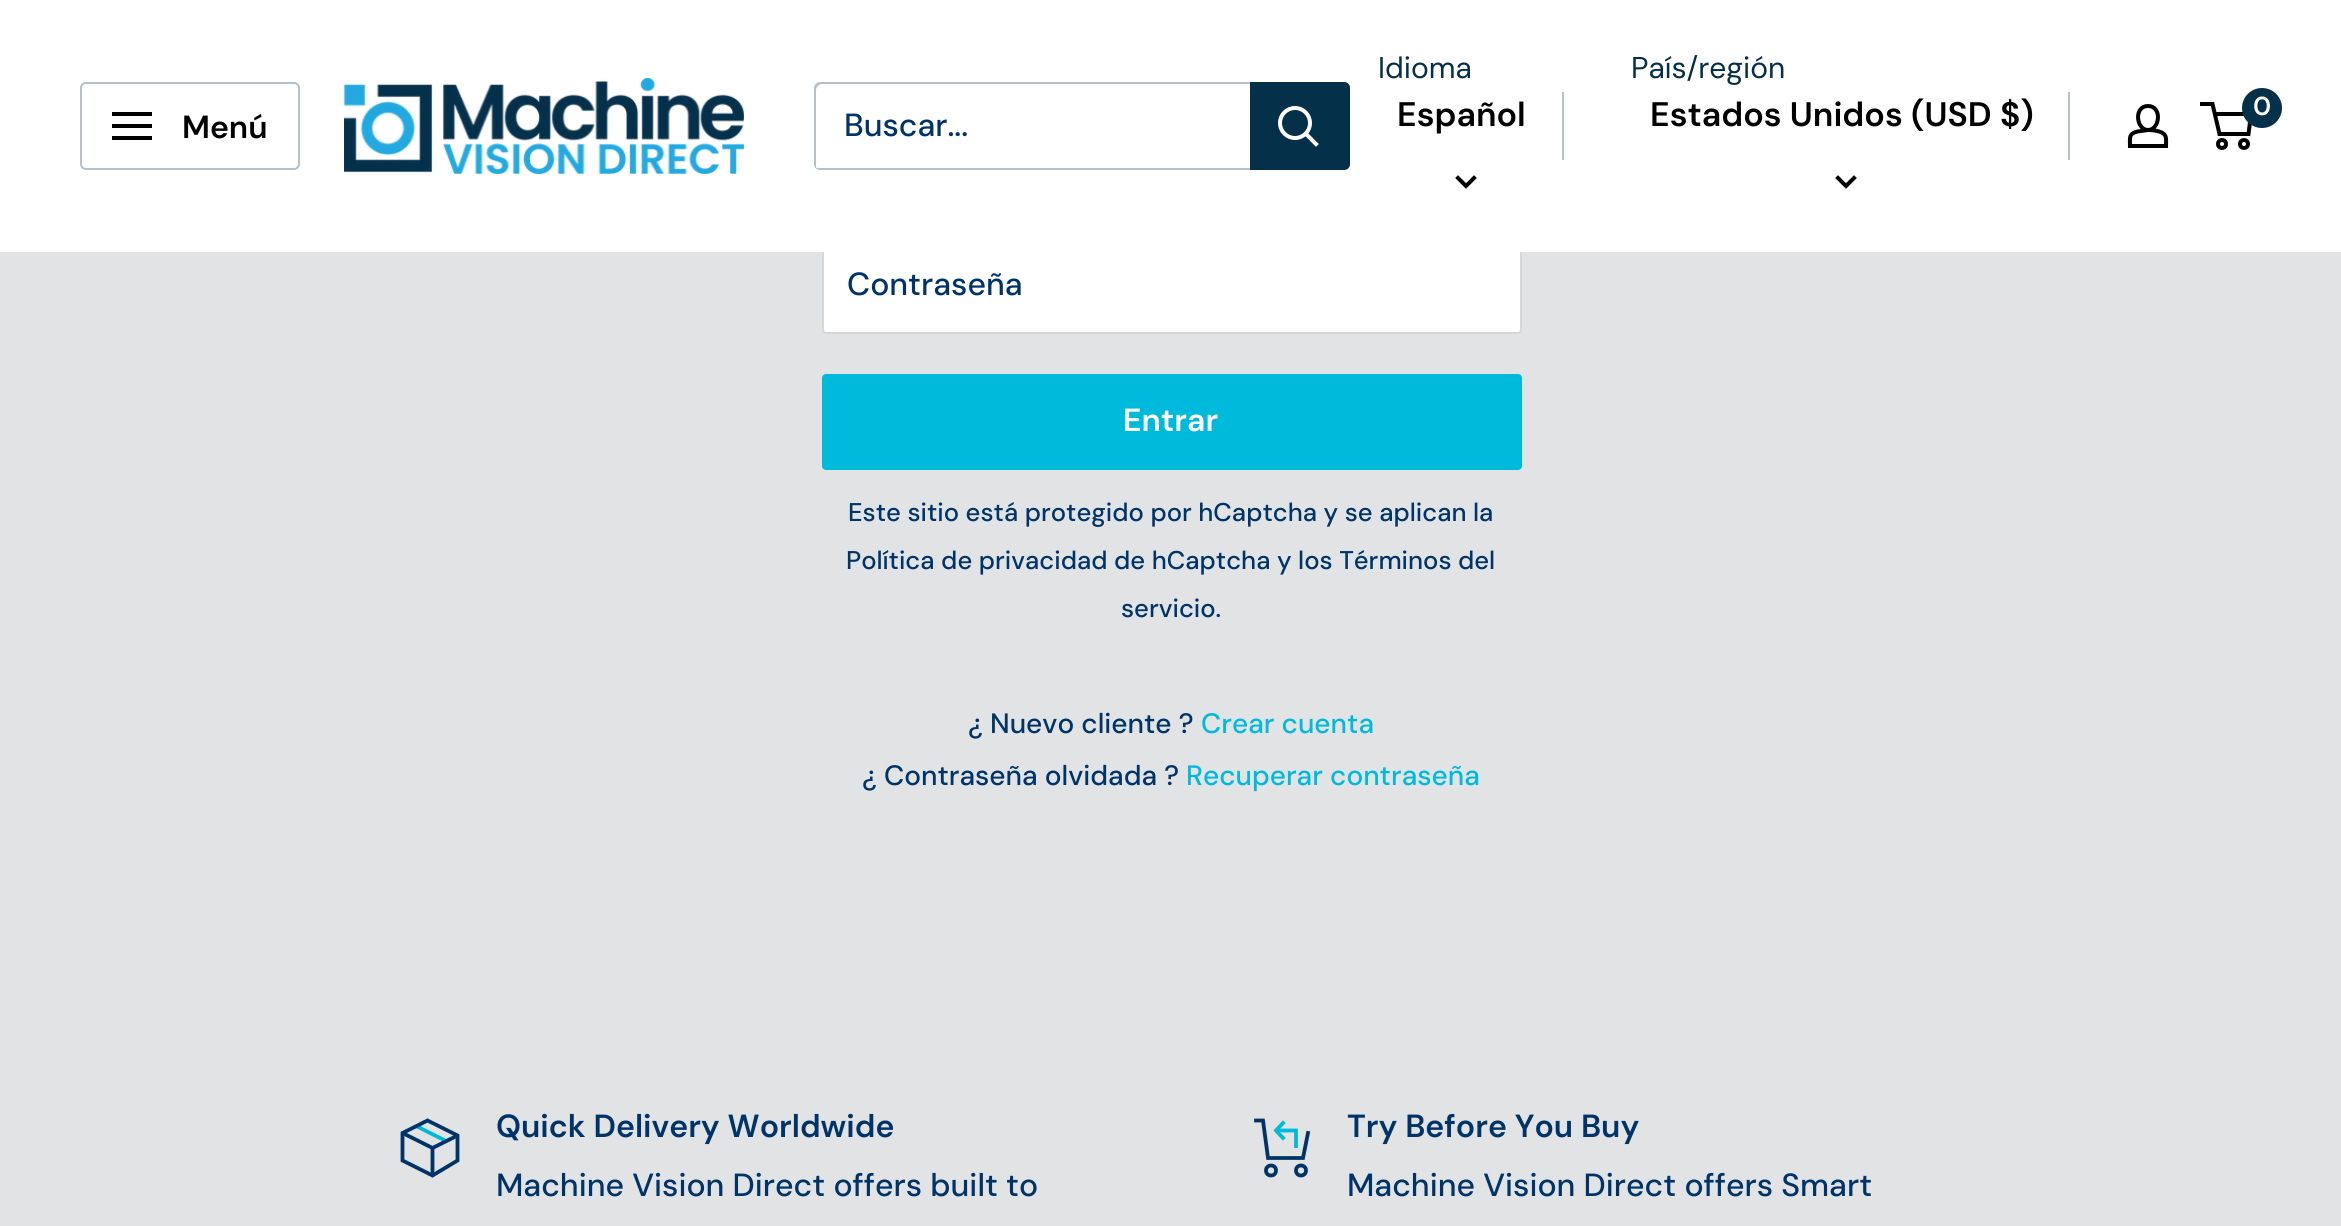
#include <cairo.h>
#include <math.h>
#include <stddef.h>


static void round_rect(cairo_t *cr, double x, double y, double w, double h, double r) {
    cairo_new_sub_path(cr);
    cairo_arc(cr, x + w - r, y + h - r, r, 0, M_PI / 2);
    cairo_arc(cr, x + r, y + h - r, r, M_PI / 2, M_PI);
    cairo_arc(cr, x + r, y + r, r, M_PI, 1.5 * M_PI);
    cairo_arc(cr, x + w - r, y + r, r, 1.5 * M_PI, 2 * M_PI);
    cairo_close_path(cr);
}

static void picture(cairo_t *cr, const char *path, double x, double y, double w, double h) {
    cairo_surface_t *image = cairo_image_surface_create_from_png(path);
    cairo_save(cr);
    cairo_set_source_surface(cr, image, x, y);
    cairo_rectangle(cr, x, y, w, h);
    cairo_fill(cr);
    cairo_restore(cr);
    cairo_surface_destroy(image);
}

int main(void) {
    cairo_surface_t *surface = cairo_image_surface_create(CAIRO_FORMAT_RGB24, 2341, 1226);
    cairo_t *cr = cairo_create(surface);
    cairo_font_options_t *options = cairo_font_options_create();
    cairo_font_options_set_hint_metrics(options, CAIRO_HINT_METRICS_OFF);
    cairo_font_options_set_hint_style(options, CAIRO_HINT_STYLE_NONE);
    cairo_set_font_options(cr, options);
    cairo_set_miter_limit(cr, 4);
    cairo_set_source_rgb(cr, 0.882, 0.89, 0.894);
    cairo_paint(cr);
    cairo_set_source_rgb(cr, 1, 1, 1);
    round_rect(cr, 823, 239, 698, 94, 3);
    cairo_fill_preserve(cr);
    cairo_set_source_rgb(cr, 0.831, 0.839, 0.847);
    cairo_stroke(cr);
    cairo_set_source_rgb(cr, 1, 1, 1);
    cairo_rectangle(cr, 0, 0, 2341, 252);
    cairo_fill(cr);
    round_rect(cr, 81, 83, 218, 86, 5);
    cairo_set_source_rgb(cr, 0.706, 0.757, 0.784);
    cairo_stroke(cr);
    cairo_set_source_rgb(cr, 0, 0, 0);
    cairo_set_fill_rule(cr, CAIRO_FILL_RULE_EVEN_ODD);
    cairo_new_path(cr);
    cairo_move_to(cr, 112, 136);
    cairo_line_to(cr, 152, 136);
    cairo_line_to(cr, 152, 140);
    cairo_line_to(cr, 112, 140);
    cairo_close_path(cr);
    cairo_move_to(cr, 112, 112);
    cairo_line_to(cr, 152, 112);
    cairo_line_to(cr, 152, 116);
    cairo_line_to(cr, 112, 116);
    cairo_close_path(cr);
    cairo_move_to(cr, 112, 124);
    cairo_line_to(cr, 152, 124);
    cairo_line_to(cr, 152, 128);
    cairo_line_to(cr, 112, 128);
    cairo_close_path(cr);
    cairo_fill(cr);
    cairo_select_font_face(cr, "DM Sans SemiBold", CAIRO_FONT_SLANT_NORMAL, CAIRO_FONT_WEIGHT_NORMAL);
    cairo_set_font_size(cr, 32);
    cairo_move_to(cr, 182, 138);
    cairo_show_text(cr, "Menú");
    picture(cr, "img1.png", 344, 78, 400, 96);
    cairo_set_source_rgb(cr, 0.706, 0.757, 0.784);
    cairo_set_fill_rule(cr, CAIRO_FILL_RULE_WINDING);
    cairo_new_path(cr);
    cairo_move_to(cr, 815, 167);
    cairo_curve_to(cr, 816, 169, 818, 170, 820, 170);
    cairo_line_to(cr, 1344, 170);
    cairo_curve_to(cr, 1347, 170, 1350, 167, 1350, 164);
    cairo_line_to(cr, 1350, 88);
    cairo_curve_to(cr, 1350, 86, 1349, 84, 1347, 83);
    cairo_curve_to(cr, 1348, 84, 1348, 85, 1348, 86);
    cairo_line_to(cr, 1348, 162);
    cairo_curve_to(cr, 1348, 165, 1345, 168, 1342, 168);
    cairo_line_to(cr, 818, 168);
    cairo_curve_to(cr, 817, 168, 816, 168, 815, 167);
    cairo_close_path(cr);
    cairo_fill(cr);
    cairo_set_source_rgba(cr, 0.02, 0.188, 0.286, 0.3);
    cairo_new_path(cr);
    cairo_move_to(cr, 822, 84);
    cairo_line_to(cr, 1346, 84);
    cairo_line_to(cr, 1349, 85);
    cairo_curve_to(cr, 1348, 83, 1346, 82, 1344, 82);
    cairo_line_to(cr, 820, 82);
    cairo_curve_to(cr, 817, 82, 814, 85, 814, 88);
    cairo_line_to(cr, 814, 164);
    cairo_curve_to(cr, 814, 166, 815, 168, 817, 169);
    cairo_curve_to(cr, 816, 168, 816, 167, 816, 166);
    cairo_line_to(cr, 816, 90);
    cairo_curve_to(cr, 816, 87, 819, 84, 822, 84);
    cairo_close_path(cr);
    cairo_fill(cr);
    cairo_select_font_face(cr, "DM Sans Medium", CAIRO_FONT_SLANT_NORMAL, CAIRO_FONT_WEIGHT_NORMAL);
    cairo_set_source_rgb(cr, 0, 0.204, 0.408);
    cairo_move_to(cr, 844, 136);
    cairo_show_text(cr, "Buscar...");
    cairo_set_source_rgb(cr, 0.02, 0.188, 0.286);
    cairo_new_path(cr);
    cairo_move_to(cr, 1250, 82);
    cairo_line_to(cr, 1344, 82);
    cairo_curve_to(cr, 1347.5, 82, 1350, 84.5, 1350, 88);
    cairo_line_to(cr, 1350, 164);
    cairo_curve_to(cr, 1350, 167.5, 1347.5, 170, 1344, 170);
    cairo_line_to(cr, 1250, 170);
    cairo_close_path(cr);
    cairo_fill(cr);
    cairo_new_path(cr);
    cairo_move_to(cr, 1316, 144);
    cairo_line_to(cr, 1306, 134);
    cairo_set_source_rgb(cr, 1, 1, 1);
    cairo_set_line_width(cr, 4);
    cairo_set_line_cap(cr, CAIRO_LINE_CAP_SQUARE);
    cairo_stroke(cr);
    cairo_arc(cr, 1295, 123, 15, 0, 2 * M_PI);
    cairo_set_line_cap(cr, CAIRO_LINE_CAP_BUTT);
    cairo_stroke(cr);
    cairo_select_font_face(cr, "DM Sans", CAIRO_FONT_SLANT_NORMAL, CAIRO_FONT_WEIGHT_NORMAL);
    cairo_set_font_size(cr, 30);
    cairo_set_source_rgb(cr, 0.02, 0.188, 0.286);
    cairo_move_to(cr, 1378, 78);
    cairo_show_text(cr, "Idioma");
    cairo_select_font_face(cr, "DM Sans SemiBold", CAIRO_FONT_SLANT_NORMAL, CAIRO_FONT_WEIGHT_NORMAL);
    cairo_set_font_size(cr, 34);
    cairo_set_source_rgb(cr, 0, 0, 0);
    cairo_move_to(cr, 1397, 126);
    cairo_show_text(cr, "Español");
    cairo_new_path(cr);
    cairo_move_to(cr, 1474, 178);
    cairo_line_to(cr, 1466, 186);
    cairo_line_to(cr, 1458, 178);
    cairo_set_line_cap(cr, CAIRO_LINE_CAP_SQUARE);
    cairo_stroke(cr);
    cairo_set_source_rgb(cr, 0.706, 0.757, 0.784);
    cairo_rectangle(cr, 1562, 92, 2, 68);
    cairo_fill(cr);
    cairo_select_font_face(cr, "DM Sans", CAIRO_FONT_SLANT_NORMAL, CAIRO_FONT_WEIGHT_NORMAL);
    cairo_set_font_size(cr, 30);
    cairo_set_source_rgb(cr, 0.02, 0.188, 0.286);
    cairo_move_to(cr, 1631, 78);
    cairo_show_text(cr, "País/región");
    cairo_select_font_face(cr, "DM Sans SemiBold", CAIRO_FONT_SLANT_NORMAL, CAIRO_FONT_WEIGHT_NORMAL);
    cairo_set_font_size(cr, 34);
    cairo_set_source_rgb(cr, 0, 0, 0);
    cairo_move_to(cr, 1650, 126);
    cairo_show_text(cr, "Estados Unidos (USD $)");
    cairo_new_path(cr);
    cairo_move_to(cr, 1854, 178);
    cairo_line_to(cr, 1846, 186);
    cairo_line_to(cr, 1838, 178);
    cairo_stroke(cr);
    cairo_set_source_rgb(cr, 0.706, 0.757, 0.784);
    cairo_rectangle(cr, 2068, 92, 2, 68);
    cairo_fill(cr);
    cairo_new_path(cr);
    cairo_move_to(cr, 2148, 130);
    cairo_curve_to(cr, 2152, 130, 2155.5, 130.5, 2159, 131.5);
    cairo_curve_to(cr, 2167.5, 134, 2166, 138.5, 2166, 146);
    cairo_line_to(cr, 2130, 146);
    cairo_curve_to(cr, 2130, 138, 2128.5, 133.5, 2137.5, 131.5);
    cairo_close_path(cr);
    cairo_move_to(cr, 2148, 130);
    cairo_curve_to(cr, 2136, 130, 2133.5, 106, 2148, 106);
    cairo_curve_to(cr, 2162.5, 106, 2160, 130, 2148, 130);
    cairo_close_path(cr);
    cairo_set_source_rgb(cr, 0, 0, 0);
    cairo_set_line_cap(cr, CAIRO_LINE_CAP_BUTT);
    cairo_stroke(cr);
    cairo_arc(cr, 2222, 144, 4, 0, 2 * M_PI);
    cairo_stroke(cr);
    cairo_arc(cr, 2244, 144, 4, 0, 2 * M_PI);
    cairo_stroke(cr);
    cairo_new_path(cr);
    cairo_move_to(cr, 2214.5, 114);
    cairo_line_to(cr, 2251, 114);
    cairo_line_to(cr, 2248.5, 134);
    cairo_line_to(cr, 2219.5, 134);
    cairo_line_to(cr, 2212.5, 104);
    cairo_line_to(cr, 2200, 104);
    cairo_stroke(cr);
    cairo_set_source_rgb(cr, 0.02, 0.188, 0.286);
    cairo_arc(cr, 2262, 108, 20, 0, 2 * M_PI);
    cairo_fill(cr);
    cairo_set_font_size(cr, 26);
    cairo_set_source_rgb(cr, 1, 1, 1);
    cairo_move_to(cr, 2253, 115);
    cairo_show_text(cr, "0");
    cairo_select_font_face(cr, "DM Sans Medium", CAIRO_FONT_SLANT_NORMAL, CAIRO_FONT_WEIGHT_NORMAL);
    cairo_set_font_size(cr, 32);
    cairo_set_source_rgb(cr, 0, 0.204, 0.408);
    cairo_move_to(cr, 847, 295);
    cairo_show_text(cr, "Contraseña");
    cairo_set_source_rgb(cr, 0, 0.729, 0.859);
    round_rect(cr, 822, 374, 700, 96, 4);
    cairo_fill(cr);
    cairo_select_font_face(cr, "DM Sans SemiBold", CAIRO_FONT_SLANT_NORMAL, CAIRO_FONT_WEIGHT_NORMAL);
    cairo_set_source_rgb(cr, 1, 1, 1);
    cairo_move_to(cr, 1123, 431);
    cairo_show_text(cr, "Entrar");
    cairo_select_font_face(cr, "DM Sans Medium", CAIRO_FONT_SLANT_NORMAL, CAIRO_FONT_WEIGHT_NORMAL);
    cairo_set_font_size(cr, 25.6);
    cairo_set_source_rgb(cr, 0, 0.204, 0.408);
    cairo_move_to(cr, 848, 521);
    cairo_show_text(cr, "Este sitio está protegido por hCaptcha y se aplican la");
    cairo_move_to(cr, 846, 569);
    cairo_show_text(cr, "Política de privacidad de hCaptcha y los Términos del");
    cairo_move_to(cr, 1121, 617);
    cairo_show_text(cr, "servicio.");
    cairo_set_font_size(cr, 28);
    cairo_move_to(cr, 968, 733);
    cairo_show_text(cr, "¿ Nuevo cliente ?");
    cairo_set_source_rgb(cr, 0, 0.729, 0.859);
    cairo_move_to(cr, 1201, 733);
    cairo_show_text(cr, "Crear cuenta");
    cairo_set_source_rgb(cr, 0, 0.204, 0.408);
    cairo_move_to(cr, 862, 785);
    cairo_show_text(cr, "¿ Contraseña olvidada ?");
    cairo_set_source_rgb(cr, 0, 0.729, 0.859);
    cairo_move_to(cr, 1186, 785);
    cairo_show_text(cr, "Recuperar contraseña");
    cairo_new_path(cr);
    cairo_move_to(cr, 416, 1126);
    cairo_line_to(cr, 446, 1141);
    cairo_set_line_width(cr, 3.8);
    cairo_stroke(cr);
    cairo_new_path(cr);
    cairo_move_to(cr, 457.5, 1135.5);
    cairo_line_to(cr, 432.5, 1148);
    cairo_line_to(cr, 402.5, 1133);
    cairo_move_to(cr, 432.5, 1148);
    cairo_line_to(cr, 432.5, 1175.5);
    cairo_set_source_rgb(cr, 0, 0.204, 0.408);
    cairo_stroke(cr);
    cairo_new_path(cr);
    cairo_move_to(cr, 457.5, 1135.5);
    cairo_line_to(cr, 457.5, 1160.5);
    cairo_line_to(cr, 432.5, 1175.5);
    cairo_line_to(cr, 402.5, 1160.5);
    cairo_line_to(cr, 402.5, 1133);
    cairo_line_to(cr, 427.5, 1120.5);
    cairo_close_path(cr);
    cairo_set_line_cap(cr, CAIRO_LINE_CAP_SQUARE);
    cairo_stroke(cr);
    cairo_select_font_face(cr, "DM Sans SemiBold", CAIRO_FONT_SLANT_NORMAL, CAIRO_FONT_WEIGHT_NORMAL);
    cairo_set_font_size(cr, 32);
    cairo_move_to(cr, 496, 1137);
    cairo_show_text(cr, "Quick Delivery Worldwide");
    cairo_select_font_face(cr, "DM Sans Medium", CAIRO_FONT_SLANT_NORMAL, CAIRO_FONT_WEIGHT_NORMAL);
    cairo_move_to(cr, 496, 1196);
    cairo_show_text(cr, "Machine Vision Direct offers built to");
    cairo_new_path(cr);
    cairo_move_to(cr, 1276, 1130.5);
    cairo_line_to(cr, 1296, 1130.5);
    cairo_line_to(cr, 1296, 1148);
    cairo_set_source_rgb(cr, 0, 0.729, 0.859);
    cairo_set_line_cap(cr, CAIRO_LINE_CAP_BUTT);
    cairo_stroke(cr);
    cairo_new_path(cr);
    cairo_move_to(cr, 1283, 1138);
    cairo_line_to(cr, 1276, 1130.5);
    cairo_line_to(cr, 1283, 1123);
    cairo_set_line_cap(cr, CAIRO_LINE_CAP_SQUARE);
    cairo_stroke(cr);
    cairo_new_path(cr);
    cairo_move_to(cr, 1308, 1133);
    cairo_line_to(cr, 1303, 1158);
    cairo_line_to(cr, 1268, 1158);
    cairo_line_to(cr, 1263, 1120.5);
    cairo_line_to(cr, 1256, 1120.5);
    cairo_set_source_rgb(cr, 0, 0.204, 0.408);
    cairo_stroke(cr);
    cairo_arc(cr, 1271, 1170.5, 5, 0, 2 * M_PI);
    cairo_set_line_cap(cr, CAIRO_LINE_CAP_BUTT);
    cairo_stroke(cr);
    cairo_arc(cr, 1301, 1170.5, 5, 0, 2 * M_PI);
    cairo_stroke(cr);
    cairo_select_font_face(cr, "DM Sans SemiBold", CAIRO_FONT_SLANT_NORMAL, CAIRO_FONT_WEIGHT_NORMAL);
    cairo_move_to(cr, 1347, 1137);
    cairo_show_text(cr, "Try Before You Buy");
    cairo_select_font_face(cr, "DM Sans Medium", CAIRO_FONT_SLANT_NORMAL, CAIRO_FONT_WEIGHT_NORMAL);
    cairo_move_to(cr, 1347, 1196);
    cairo_show_text(cr, "Machine Vision Direct offers Smart");
    cairo_surface_write_to_png(surface, "page.png");
    cairo_font_options_destroy(options);
    cairo_destroy(cr);
    cairo_surface_destroy(surface);
    return 0;
}
